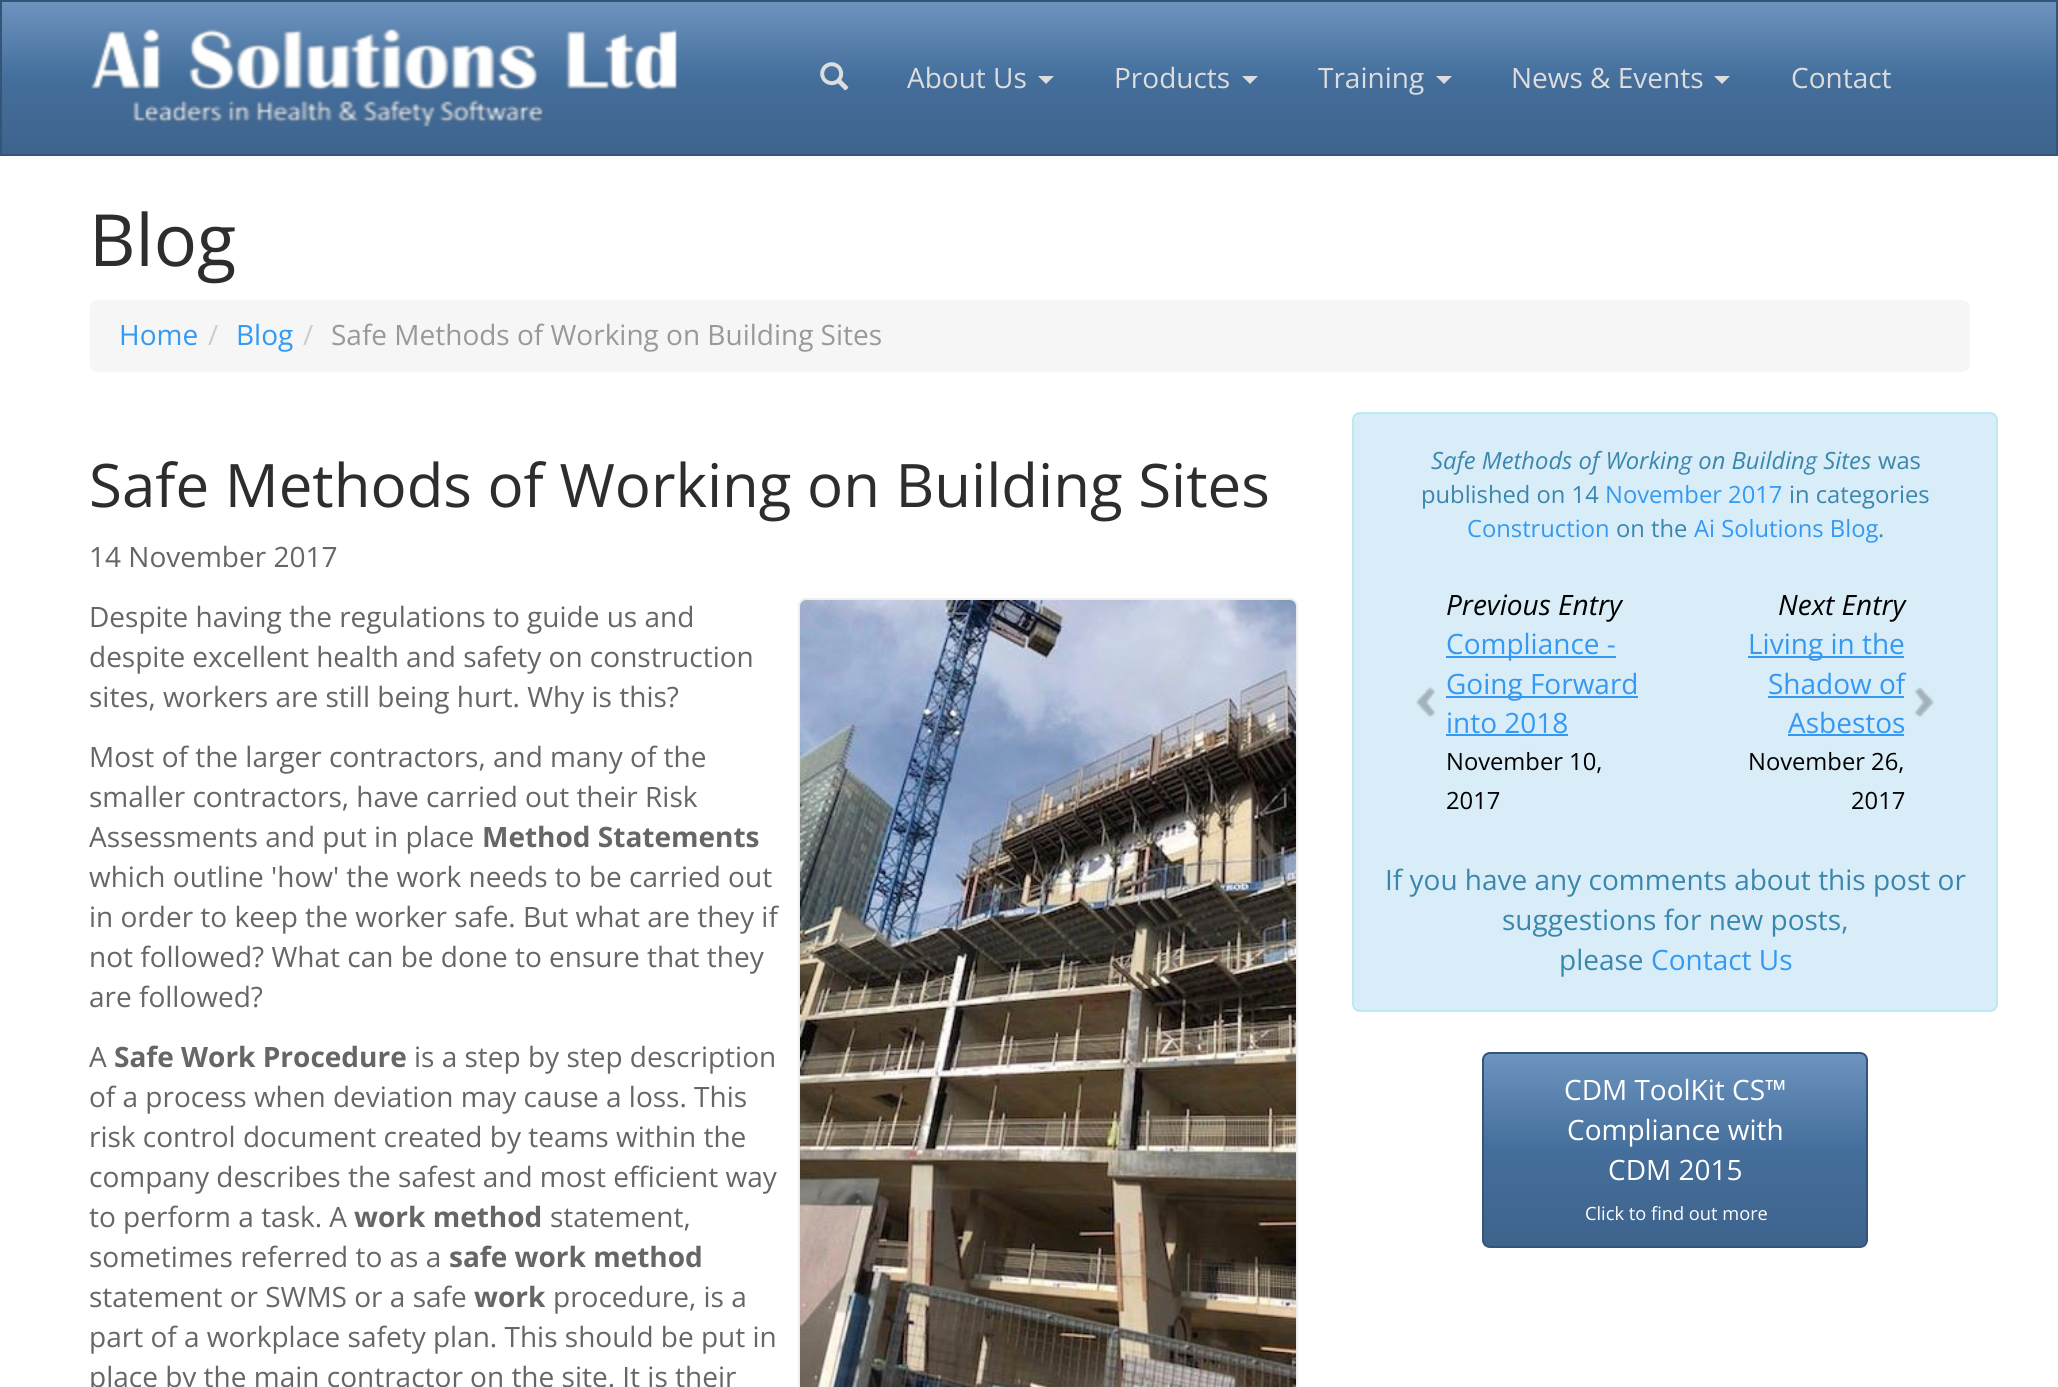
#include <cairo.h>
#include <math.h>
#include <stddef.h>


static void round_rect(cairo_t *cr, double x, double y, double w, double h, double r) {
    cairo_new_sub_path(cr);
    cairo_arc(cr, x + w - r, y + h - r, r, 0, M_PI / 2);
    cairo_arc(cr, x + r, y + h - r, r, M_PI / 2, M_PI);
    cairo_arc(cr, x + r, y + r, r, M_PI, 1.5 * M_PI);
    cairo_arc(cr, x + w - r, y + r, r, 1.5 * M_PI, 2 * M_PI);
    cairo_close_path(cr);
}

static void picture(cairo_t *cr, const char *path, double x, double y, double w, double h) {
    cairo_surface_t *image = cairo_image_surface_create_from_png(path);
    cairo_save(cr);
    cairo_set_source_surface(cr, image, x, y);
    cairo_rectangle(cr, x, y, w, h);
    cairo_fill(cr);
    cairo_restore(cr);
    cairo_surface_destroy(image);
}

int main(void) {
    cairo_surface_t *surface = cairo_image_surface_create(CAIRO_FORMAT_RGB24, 2058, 1387);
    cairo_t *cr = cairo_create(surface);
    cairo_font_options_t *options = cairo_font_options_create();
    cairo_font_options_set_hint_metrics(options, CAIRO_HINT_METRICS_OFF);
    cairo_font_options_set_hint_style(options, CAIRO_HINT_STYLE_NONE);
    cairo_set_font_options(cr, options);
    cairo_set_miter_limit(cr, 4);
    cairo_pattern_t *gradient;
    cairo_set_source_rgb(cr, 1, 1, 1);
    cairo_paint(cr);
    gradient = cairo_pattern_create_linear(1029, 2, 1029, 154);
    cairo_pattern_add_color_stop_rgba(gradient, 0, 0.427, 0.58, 0.749, 1);
    cairo_pattern_add_color_stop_rgba(gradient, 0.5, 0.267, 0.431, 0.608, 1);
    cairo_pattern_add_color_stop_rgba(gradient, 1, 0.243, 0.392, 0.553, 1);
    cairo_set_source(cr, gradient);
    cairo_pattern_destroy(gradient);
    cairo_rectangle(cr, 2, 2, 2054, 152);
    cairo_fill(cr);
    cairo_rectangle(cr, 1, 1, 2056, 154);
    cairo_set_source_rgb(cr, 0.204, 0.333, 0.471);
    cairo_stroke(cr);
    picture(cr, "img1.png", 91, 29, 586, 98);
    picture(cr, "img2.png", 820, 62, 29, 29);
    cairo_select_font_face(cr, "Open Sans", CAIRO_FONT_SLANT_NORMAL, CAIRO_FONT_WEIGHT_NORMAL);
    cairo_set_font_size(cr, 28);
    cairo_set_source_rgb(cr, 0.867, 0.867, 0.867);
    cairo_move_to(cr, 907, 88);
    cairo_show_text(cr, "About Us");
    cairo_new_path(cr);
    cairo_move_to(cr, 1038, 76);
    cairo_line_to(cr, 1054, 76);
    cairo_line_to(cr, 1046, 84);
    cairo_close_path(cr);
    cairo_fill(cr);
    cairo_move_to(cr, 1114, 88);
    cairo_show_text(cr, "Products");
    cairo_new_path(cr);
    cairo_move_to(cr, 1242, 76);
    cairo_line_to(cr, 1258, 76);
    cairo_line_to(cr, 1250, 84);
    cairo_close_path(cr);
    cairo_fill(cr);
    cairo_move_to(cr, 1318, 88);
    cairo_show_text(cr, "Training");
    cairo_new_path(cr);
    cairo_move_to(cr, 1436, 76);
    cairo_line_to(cr, 1452, 76);
    cairo_line_to(cr, 1444, 84);
    cairo_close_path(cr);
    cairo_fill(cr);
    cairo_move_to(cr, 1511, 88);
    cairo_show_text(cr, "News & Events");
    cairo_new_path(cr);
    cairo_move_to(cr, 1714, 76);
    cairo_line_to(cr, 1730, 76);
    cairo_line_to(cr, 1722, 84);
    cairo_close_path(cr);
    cairo_fill(cr);
    cairo_move_to(cr, 1791, 88);
    cairo_show_text(cr, "Contact");
    cairo_set_font_size(cr, 72);
    cairo_set_source_rgb(cr, 0.176, 0.176, 0.176);
    cairo_move_to(cr, 89, 266);
    cairo_show_text(cr, "Blog");
    cairo_set_source_rgb(cr, 0.961, 0.961, 0.961);
    round_rect(cr, 90, 300, 1880, 72, 8);
    cairo_fill(cr);
    cairo_set_font_size(cr, 28);
    cairo_set_source_rgb(cr, 0.2, 0.6, 0.953);
    cairo_move_to(cr, 119, 345);
    cairo_show_text(cr, "Home");
    cairo_set_source_rgb(cr, 0.8, 0.8, 0.8);
    cairo_move_to(cr, 208, 345);
    cairo_show_text(cr, "/");
    cairo_set_source_rgb(cr, 0.2, 0.6, 0.953);
    cairo_move_to(cr, 236, 345);
    cairo_show_text(cr, "Blog");
    cairo_set_source_rgb(cr, 0.8, 0.8, 0.8);
    cairo_move_to(cr, 303, 345);
    cairo_show_text(cr, "/");
    cairo_set_source_rgb(cr, 0.6, 0.6, 0.6);
    cairo_move_to(cr, 331, 345);
    cairo_show_text(cr, "Safe Methods of Working on Building Sites");
    cairo_set_font_size(cr, 60);
    cairo_set_source_rgb(cr, 0.176, 0.176, 0.176);
    cairo_move_to(cr, 89, 507);
    cairo_show_text(cr, "Safe Methods of Working on Building Sites");
    cairo_set_font_size(cr, 28);
    cairo_set_source_rgb(cr, 0.4, 0.4, 0.4);
    cairo_move_to(cr, 89, 567);
    cairo_show_text(cr, "14 November 2017");
    cairo_move_to(cr, 89, 627);
    cairo_show_text(cr, "Despite having the regulations to guide us and");
    round_rect(cr, 799, 599, 498, 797, 7);
    cairo_set_source_rgb(cr, 0.933, 0.933, 0.933);
    cairo_stroke(cr);
    picture(cr, "img3.png", 800, 600, 496, 787);
    cairo_set_source_rgb(cr, 0.4, 0.4, 0.4);
    cairo_move_to(cr, 89, 667);
    cairo_show_text(cr, "despite excellent health and safety on construction");
    cairo_move_to(cr, 89, 707);
    cairo_show_text(cr, "sites, workers are still being hurt. Why is this?");
    cairo_move_to(cr, 89, 767);
    cairo_show_text(cr, "Most of the larger contractors, and many of the");
    cairo_move_to(cr, 89, 807);
    cairo_show_text(cr, "smaller contractors, have carried out their Risk");
    cairo_move_to(cr, 89, 847);
    cairo_show_text(cr, "Assessments and put in place");
    cairo_select_font_face(cr, "Open Sans", CAIRO_FONT_SLANT_NORMAL, CAIRO_FONT_WEIGHT_BOLD);
    cairo_move_to(cr, 482, 847);
    cairo_show_text(cr, "Method Statements");
    cairo_select_font_face(cr, "Open Sans", CAIRO_FONT_SLANT_NORMAL, CAIRO_FONT_WEIGHT_NORMAL);
    cairo_move_to(cr, 89, 887);
    cairo_show_text(cr, "which outline 'how' the work needs to be carried out");
    cairo_move_to(cr, 89, 927);
    cairo_show_text(cr, "in order to keep the worker safe. But what are they if");
    cairo_move_to(cr, 89, 967);
    cairo_show_text(cr, "not followed? What can be done to ensure that they");
    cairo_move_to(cr, 89, 1007);
    cairo_show_text(cr, "are followed?");
    cairo_move_to(cr, 89, 1067);
    cairo_show_text(cr, "A");
    cairo_select_font_face(cr, "Open Sans", CAIRO_FONT_SLANT_NORMAL, CAIRO_FONT_WEIGHT_BOLD);
    cairo_move_to(cr, 114, 1067);
    cairo_show_text(cr, "Safe Work Procedure");
    cairo_select_font_face(cr, "Open Sans", CAIRO_FONT_SLANT_NORMAL, CAIRO_FONT_WEIGHT_NORMAL);
    cairo_move_to(cr, 414, 1067);
    cairo_show_text(cr, "is a step by step description");
    cairo_move_to(cr, 89, 1107);
    cairo_show_text(cr, "of a process when deviation may cause a loss. This");
    cairo_move_to(cr, 89, 1147);
    cairo_show_text(cr, "risk control document created by teams within the");
    cairo_move_to(cr, 89, 1187);
    cairo_show_text(cr, "company describes the safest and most efficient way");
    cairo_move_to(cr, 89, 1227);
    cairo_show_text(cr, "to perform a task. A");
    cairo_select_font_face(cr, "Open Sans", CAIRO_FONT_SLANT_NORMAL, CAIRO_FONT_WEIGHT_BOLD);
    cairo_move_to(cr, 354, 1227);
    cairo_show_text(cr, "work method");
    cairo_select_font_face(cr, "Open Sans", CAIRO_FONT_SLANT_NORMAL, CAIRO_FONT_WEIGHT_NORMAL);
    cairo_move_to(cr, 550, 1227);
    cairo_show_text(cr, "statement,");
    cairo_move_to(cr, 89, 1267);
    cairo_show_text(cr, "sometimes referred to as a");
    cairo_select_font_face(cr, "Open Sans", CAIRO_FONT_SLANT_NORMAL, CAIRO_FONT_WEIGHT_BOLD);
    cairo_move_to(cr, 449, 1267);
    cairo_show_text(cr, "safe work method");
    cairo_select_font_face(cr, "Open Sans", CAIRO_FONT_SLANT_NORMAL, CAIRO_FONT_WEIGHT_NORMAL);
    cairo_move_to(cr, 89, 1307);
    cairo_show_text(cr, "statement or SWMS or a safe");
    cairo_select_font_face(cr, "Open Sans", CAIRO_FONT_SLANT_NORMAL, CAIRO_FONT_WEIGHT_BOLD);
    cairo_move_to(cr, 474, 1307);
    cairo_show_text(cr, "work");
    cairo_select_font_face(cr, "Open Sans", CAIRO_FONT_SLANT_NORMAL, CAIRO_FONT_WEIGHT_NORMAL);
    cairo_move_to(cr, 553, 1307);
    cairo_show_text(cr, "procedure, is a");
    cairo_move_to(cr, 89, 1347);
    cairo_show_text(cr, "part of a workplace safety plan. This should be put in");
    cairo_move_to(cr, 89, 1387);
    cairo_show_text(cr, "place by the main contractor on the site. It is their");
    cairo_set_source_rgb(cr, 0.851, 0.929, 0.969);
    round_rect(cr, 1353, 413, 644, 598, 7);
    cairo_fill_preserve(cr);
    cairo_set_source_rgb(cr, 0.737, 0.91, 0.945);
    cairo_stroke(cr);
    cairo_select_font_face(cr, "Open Sans", CAIRO_FONT_SLANT_ITALIC, CAIRO_FONT_WEIGHT_NORMAL);
    cairo_set_font_size(cr, 23.75);
    cairo_set_source_rgb(cr, 0.227, 0.529, 0.678);
    cairo_move_to(cr, 1431, 469);
    cairo_show_text(cr, "Safe Methods of Working on Building Sites");
    cairo_select_font_face(cr, "Open Sans", CAIRO_FONT_SLANT_NORMAL, CAIRO_FONT_WEIGHT_NORMAL);
    cairo_move_to(cr, 1878, 469);
    cairo_show_text(cr, "was");
    cairo_move_to(cr, 1421, 503);
    cairo_show_text(cr, "published on 14");
    cairo_set_source_rgb(cr, 0.2, 0.6, 0.953);
    cairo_move_to(cr, 1605, 503);
    cairo_show_text(cr, "November 2017");
    cairo_set_source_rgb(cr, 0.227, 0.529, 0.678);
    cairo_move_to(cr, 1789, 503);
    cairo_show_text(cr, "in categories");
    cairo_set_source_rgb(cr, 0.2, 0.6, 0.953);
    cairo_move_to(cr, 1467, 537);
    cairo_show_text(cr, "Construction");
    cairo_set_source_rgb(cr, 0.227, 0.529, 0.678);
    cairo_move_to(cr, 1616, 537);
    cairo_show_text(cr, "on the");
    cairo_set_source_rgb(cr, 0.2, 0.6, 0.953);
    cairo_move_to(cr, 1694, 537);
    cairo_show_text(cr, "Ai Solutions Blog");
    cairo_set_source_rgb(cr, 0.227, 0.529, 0.678);
    cairo_move_to(cr, 1878, 537);
    cairo_show_text(cr, ".");
    picture(cr, "img4.png", 1416, 687, 20, 30);
    cairo_select_font_face(cr, "Open Sans", CAIRO_FONT_SLANT_ITALIC, CAIRO_FONT_WEIGHT_NORMAL);
    cairo_set_font_size(cr, 28);
    cairo_set_source_rgb(cr, 0, 0, 0);
    cairo_move_to(cr, 1446, 615);
    cairo_show_text(cr, "Previous Entry");
    cairo_set_source_rgb(cr, 0.2, 0.6, 0.953);
    cairo_rectangle(cr, 1446, 656, 170, 2);
    cairo_fill(cr);
    cairo_select_font_face(cr, "Open Sans", CAIRO_FONT_SLANT_NORMAL, CAIRO_FONT_WEIGHT_NORMAL);
    cairo_move_to(cr, 1446, 654);
    cairo_show_text(cr, "Compliance -");
    cairo_rectangle(cr, 1446, 696, 192, 2);
    cairo_fill(cr);
    cairo_move_to(cr, 1446, 694);
    cairo_show_text(cr, "Going Forward");
    cairo_move_to(cr, 1446, 733);
    cairo_show_text(cr, "into 2018");
    cairo_rectangle(cr, 1446, 734, 122, 2);
    cairo_fill(cr);
    cairo_set_font_size(cr, 23.75);
    cairo_set_source_rgb(cr, 0, 0, 0);
    cairo_move_to(cr, 1446, 770);
    cairo_show_text(cr, "November 10,");
    cairo_move_to(cr, 1446, 809);
    cairo_show_text(cr, "2017");
    picture(cr, "img5.png", 1914, 687, 20, 30);
    cairo_select_font_face(cr, "Open Sans", CAIRO_FONT_SLANT_ITALIC, CAIRO_FONT_WEIGHT_NORMAL);
    cairo_set_font_size(cr, 28);
    cairo_move_to(cr, 1778, 615);
    cairo_show_text(cr, "Next Entry");
    cairo_set_source_rgb(cr, 0.2, 0.6, 0.953);
    cairo_rectangle(cr, 1748, 656, 156, 2);
    cairo_fill(cr);
    cairo_select_font_face(cr, "Open Sans", CAIRO_FONT_SLANT_NORMAL, CAIRO_FONT_WEIGHT_NORMAL);
    cairo_move_to(cr, 1748, 654);
    cairo_show_text(cr, "Living in the");
    cairo_move_to(cr, 1768, 694);
    cairo_show_text(cr, "Shadow of");
    cairo_rectangle(cr, 1768, 696, 136, 2);
    cairo_fill(cr);
    cairo_move_to(cr, 1788, 733);
    cairo_show_text(cr, "Asbestos");
    cairo_rectangle(cr, 1788, 734, 116, 2);
    cairo_fill(cr);
    cairo_set_font_size(cr, 23.75);
    cairo_set_source_rgb(cr, 0, 0, 0);
    cairo_move_to(cr, 1748, 770);
    cairo_show_text(cr, "November 26,");
    cairo_move_to(cr, 1851, 809);
    cairo_show_text(cr, "2017");
    cairo_set_font_size(cr, 28);
    cairo_set_source_rgb(cr, 0.227, 0.529, 0.678);
    cairo_move_to(cr, 1385, 890);
    cairo_show_text(cr, "If you have any comments about this post or");
    cairo_move_to(cr, 1502, 930);
    cairo_show_text(cr, "suggestions for new posts,");
    cairo_move_to(cr, 1559, 970);
    cairo_show_text(cr, "please");
    cairo_set_source_rgb(cr, 0.2, 0.6, 0.953);
    cairo_move_to(cr, 1651, 970);
    cairo_show_text(cr, "Contact Us");
    cairo_save(cr);
    round_rect(cr, 1482, 1052, 386, 196, 8);
    cairo_clip(cr);
    gradient = cairo_pattern_create_linear(1675, 1054, 1675, 1246);
    cairo_pattern_add_color_stop_rgba(gradient, 0, 0.427, 0.58, 0.749, 1);
    cairo_pattern_add_color_stop_rgba(gradient, 0.5, 0.267, 0.431, 0.608, 1);
    cairo_pattern_add_color_stop_rgba(gradient, 1, 0.243, 0.392, 0.553, 1);
    cairo_set_source(cr, gradient);
    cairo_pattern_destroy(gradient);
    cairo_rectangle(cr, 1484, 1054, 382, 192);
    cairo_fill(cr);
    cairo_restore(cr);
    round_rect(cr, 1483, 1053, 384, 194, 7);
    cairo_set_source_rgb(cr, 0.204, 0.333, 0.471);
    cairo_stroke(cr);
    cairo_set_source_rgb(cr, 1, 1, 1);
    cairo_move_to(cr, 1564, 1100);
    cairo_show_text(cr, "CDM ToolKit CS™");
    cairo_move_to(cr, 1567, 1140);
    cairo_show_text(cr, "Compliance with");
    cairo_move_to(cr, 1608, 1180);
    cairo_show_text(cr, "CDM 2015");
    cairo_set_font_size(cr, 18.25);
    cairo_move_to(cr, 1585, 1220);
    cairo_show_text(cr, "Click to find out more");
    cairo_surface_write_to_png(surface, "page.png");
    cairo_font_options_destroy(options);
    cairo_destroy(cr);
    cairo_surface_destroy(surface);
    return 0;
}
